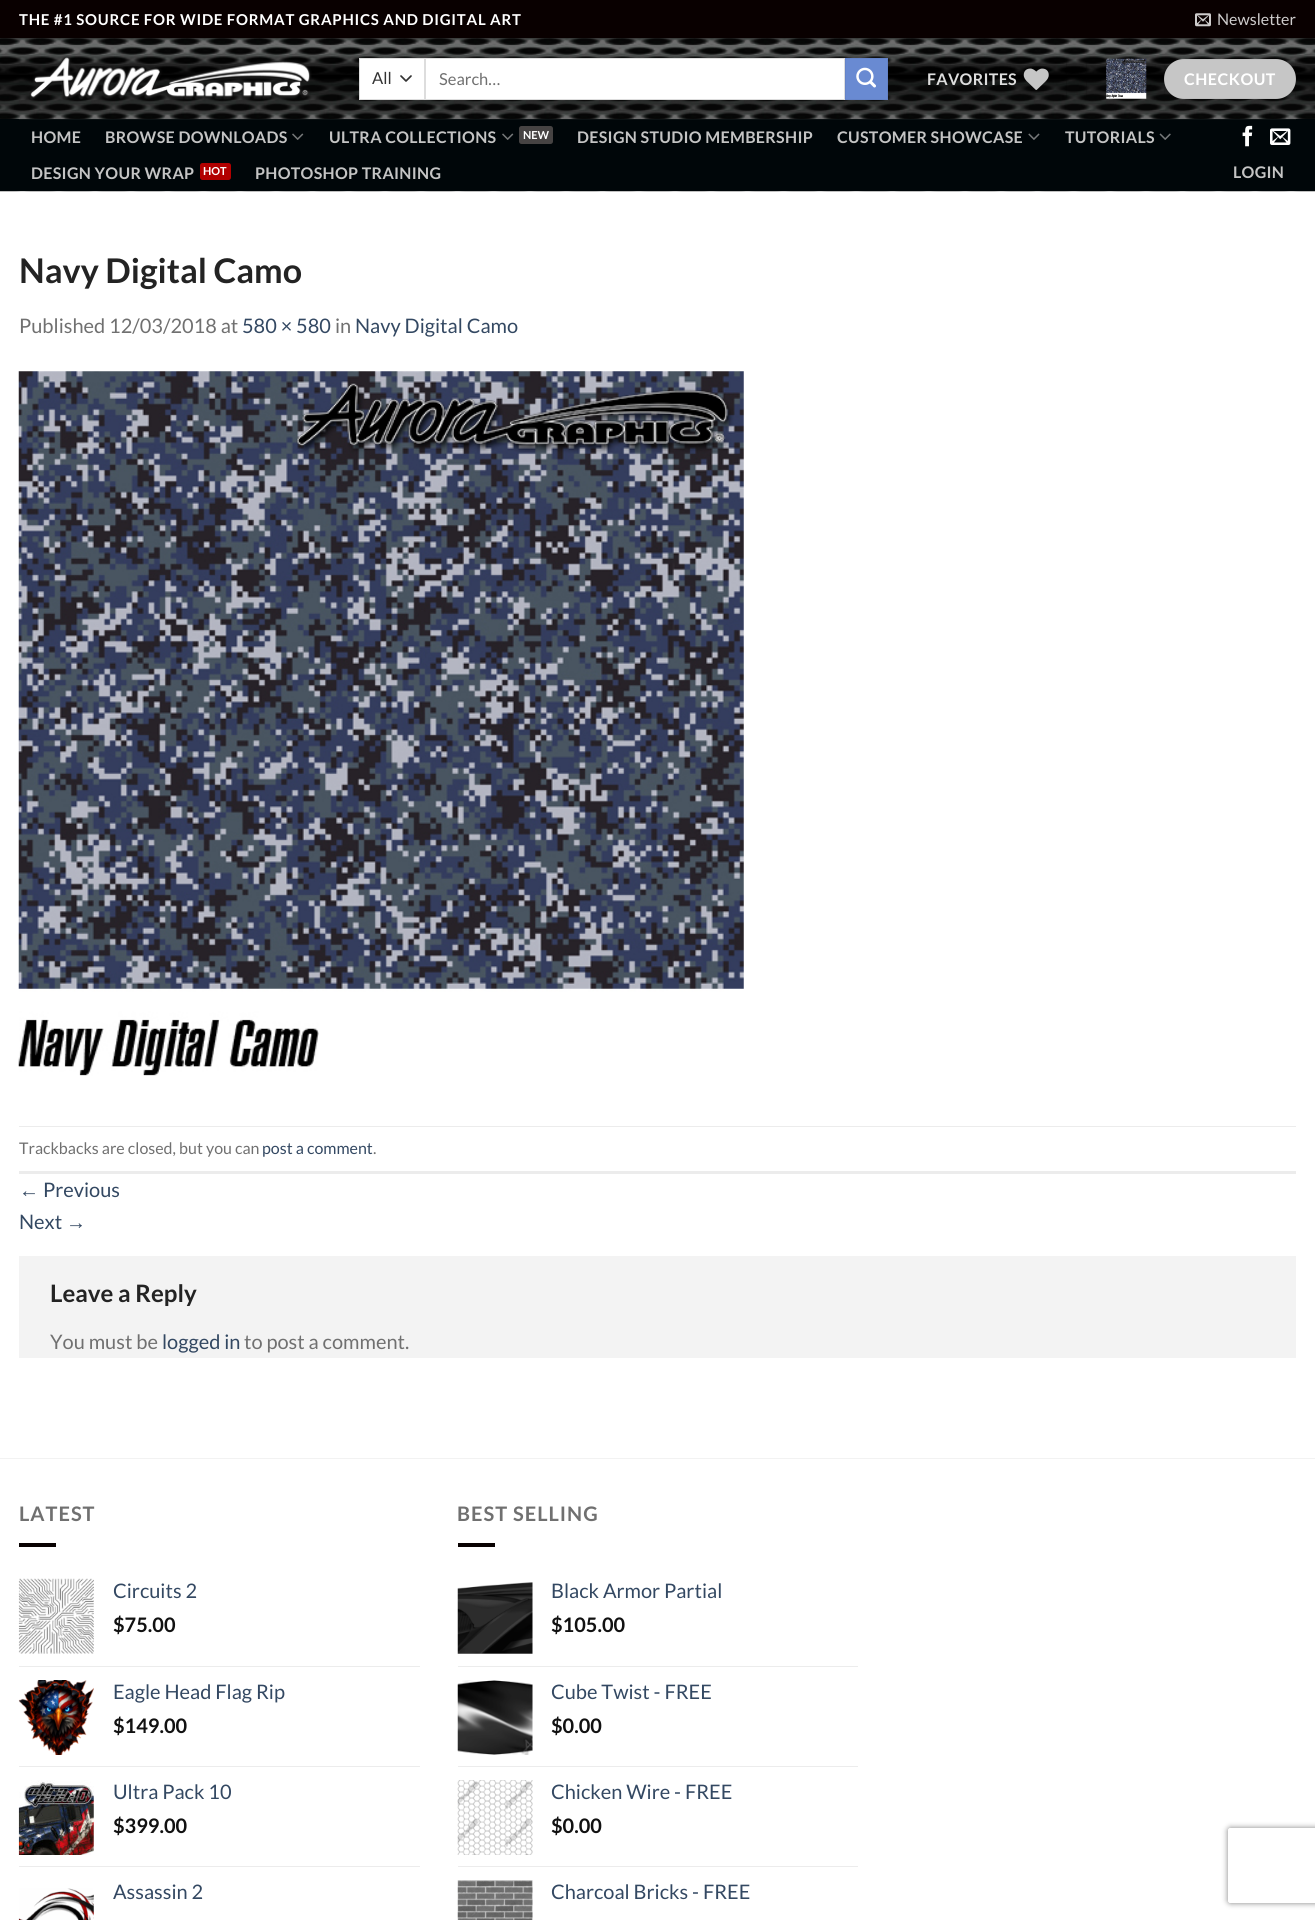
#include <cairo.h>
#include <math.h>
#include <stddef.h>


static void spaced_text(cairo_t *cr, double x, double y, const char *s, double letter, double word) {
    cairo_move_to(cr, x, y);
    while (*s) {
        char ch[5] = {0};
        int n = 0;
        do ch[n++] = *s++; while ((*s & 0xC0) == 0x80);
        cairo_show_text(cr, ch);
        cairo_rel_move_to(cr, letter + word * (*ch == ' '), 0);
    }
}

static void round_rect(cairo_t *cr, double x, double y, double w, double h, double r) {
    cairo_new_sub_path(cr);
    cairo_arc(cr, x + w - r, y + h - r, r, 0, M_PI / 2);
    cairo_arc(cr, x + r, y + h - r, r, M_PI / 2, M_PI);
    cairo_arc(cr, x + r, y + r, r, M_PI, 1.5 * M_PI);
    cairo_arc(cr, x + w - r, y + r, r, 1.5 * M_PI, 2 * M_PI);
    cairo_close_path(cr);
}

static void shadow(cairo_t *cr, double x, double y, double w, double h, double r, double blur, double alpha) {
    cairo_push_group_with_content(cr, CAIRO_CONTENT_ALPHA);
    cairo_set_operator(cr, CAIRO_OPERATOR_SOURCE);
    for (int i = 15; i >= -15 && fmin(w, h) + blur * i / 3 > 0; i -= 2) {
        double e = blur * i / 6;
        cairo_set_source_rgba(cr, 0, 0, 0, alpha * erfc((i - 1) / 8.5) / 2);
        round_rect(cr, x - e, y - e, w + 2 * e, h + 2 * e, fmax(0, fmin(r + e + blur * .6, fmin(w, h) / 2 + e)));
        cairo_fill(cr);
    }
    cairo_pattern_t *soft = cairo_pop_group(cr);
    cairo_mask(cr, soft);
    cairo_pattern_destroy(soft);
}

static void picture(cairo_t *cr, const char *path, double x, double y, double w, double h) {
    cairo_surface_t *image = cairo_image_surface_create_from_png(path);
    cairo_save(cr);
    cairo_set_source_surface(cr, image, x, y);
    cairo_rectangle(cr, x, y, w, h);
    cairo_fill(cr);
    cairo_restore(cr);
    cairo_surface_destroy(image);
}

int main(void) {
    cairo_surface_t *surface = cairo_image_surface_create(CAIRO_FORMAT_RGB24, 1315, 1920);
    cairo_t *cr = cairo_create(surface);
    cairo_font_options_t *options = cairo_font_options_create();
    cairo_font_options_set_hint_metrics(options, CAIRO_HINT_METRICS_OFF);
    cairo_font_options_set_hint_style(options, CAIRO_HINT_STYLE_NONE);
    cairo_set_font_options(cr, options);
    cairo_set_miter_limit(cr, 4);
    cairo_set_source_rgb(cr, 1, 1, 1);
    cairo_paint(cr);
    cairo_set_source_rgb(cr, 0.039, 0, 0);
    cairo_rectangle(cr, 0, 0, 1315, 38);
    cairo_fill(cr);
    cairo_select_font_face(cr, "Lato", CAIRO_FONT_SLANT_NORMAL, CAIRO_FONT_WEIGHT_BOLD);
    cairo_set_font_size(cr, 15);
    cairo_set_source_rgb(cr, 1, 1, 1);
    spaced_text(cr, 19, 25, "THE #1 SOURCE FOR WIDE FORMAT GRAPHICS AND DIGITAL ART", 0.75, 0);
    picture(cr, "img1.png", 1195, 13, 16, 14);
    cairo_select_font_face(cr, "Lato", CAIRO_FONT_SLANT_NORMAL, CAIRO_FONT_WEIGHT_NORMAL);
    cairo_set_font_size(cr, 16);
    cairo_set_source_rgb(cr, 0.808, 0.8, 0.8);
    cairo_move_to(cr, 1217, 25);
    cairo_show_text(cr, "Newsletter");
    picture(cr, "img2.png", 0, 38, 1315, 154);
    picture(cr, "img3.png", 29, 55, 283, 45);
    cairo_set_source_rgb(cr, 1, 1, 1);
    cairo_rectangle(cr, 360, 59, 64, 40);
    cairo_fill(cr);
    cairo_new_path(cr);
    cairo_move_to(cr, 401, 76);
    cairo_line_to(cr, 406, 81);
    cairo_line_to(cr, 411, 76);
    cairo_set_source_rgb(cr, 0.2, 0.2, 0.2);
    cairo_set_line_width(cr, 1.7);
    cairo_set_line_cap(cr, CAIRO_LINE_CAP_ROUND);
    cairo_set_line_join(cr, CAIRO_LINE_JOIN_ROUND);
    cairo_stroke(cr);
    cairo_rectangle(cr, 359.5, 58.5, 65, 41);
    cairo_set_source_rgb(cr, 0.867, 0.867, 0.867);
    cairo_set_line_width(cr, 1);
    cairo_set_line_cap(cr, CAIRO_LINE_CAP_BUTT);
    cairo_set_line_join(cr, CAIRO_LINE_JOIN_MITER);
    cairo_stroke(cr);
    cairo_set_font_size(cr, 16.5);
    cairo_set_source_rgb(cr, 0.2, 0.2, 0.2);
    cairo_move_to(cr, 372, 84);
    cairo_show_text(cr, "All");
    cairo_set_source_rgb(cr, 1, 1, 1);
    cairo_rectangle(cr, 425.5, 58.5, 419, 41);
    cairo_fill_preserve(cr);
    cairo_set_source_rgb(cr, 0.867, 0.867, 0.867);
    cairo_stroke(cr);
    cairo_set_source_rgb(cr, 0.439, 0.439, 0.439);
    cairo_move_to(cr, 439, 85);
    cairo_show_text(cr, "Search…");
    cairo_set_source_rgb(cr, 0.412, 0.541, 0.824);
    cairo_rectangle(cr, 845.5, 58.5, 42, 41);
    cairo_fill_preserve(cr);
    cairo_set_source_rgb(cr, 0.392, 0.514, 0.784);
    cairo_stroke(cr);
    picture(cr, "img4.png", 856, 67, 20, 21);
    cairo_select_font_face(cr, "Lato", CAIRO_FONT_SLANT_NORMAL, CAIRO_FONT_WEIGHT_BOLD);
    cairo_set_font_size(cr, 16);
    cairo_set_source_rgb(cr, 0.867, 0.867, 0.867);
    spaced_text(cr, 927, 85, "FAVORITES", 0.3, 0);
    picture(cr, "img5.png", 1023, 68, 26, 22);
    cairo_set_source_rgba(cr, 0, 0, 0, 0.1);
    cairo_rectangle(cr, 1066, 60, 1, 38);
    cairo_fill(cr);
    cairo_rectangle(cr, 1086, 60, 1, 38);
    cairo_fill(cr);
    picture(cr, "img6.png", 1106, 58, 41, 41);
    cairo_set_source_rgb(cr, 0.776, 0.776, 0.776);
    round_rect(cr, 1164, 59, 132, 40, 20);
    cairo_fill(cr);
    cairo_rectangle(cr, 1164.5, 59.5, 131, 39);
    cairo_set_source_rgba(cr, 0, 0, 0, 0.05);
    cairo_stroke(cr);
    cairo_set_source_rgb(cr, 1, 1, 1);
    spaced_text(cr, 1184, 85, "CHECKOUT", 0.5, 0);
    cairo_set_source_rgb(cr, 0, 0.024, 0.039);
    cairo_rectangle(cr, 0, 119, 1315, 72);
    cairo_fill(cr);
    cairo_set_source_rgb(cr, 0.043, 0.067, 0.078);
    cairo_rectangle(cr, 19, 119, 1277, 1);
    cairo_fill(cr);
    cairo_set_source_rgb(cr, 0.769, 0.769, 0.769);
    spaced_text(cr, 31, 143, "HOME", 0.3, 0);
    spaced_text(cr, 105, 143, "BROWSE DOWNLOADS", 0.3, 0);
    picture(cr, "img7.png", 292, 133, 12, 7);
    spaced_text(cr, 329, 143, "ULTRA COLLECTIONS", 0.3, 0);
    picture(cr, "img7.png", 502, 133, 12, 7);
    cairo_set_source_rgb(cr, 0.275, 0.263, 0.263);
    round_rect(cr, 519, 126, 34, 18, 2.5);
    cairo_fill(cr);
    cairo_set_font_size(cr, 11);
    cairo_set_source_rgb(cr, 1, 1, 1);
    cairo_move_to(cr, 523, 139);
    cairo_show_text(cr, "NEW");
    cairo_set_font_size(cr, 16);
    cairo_set_source_rgb(cr, 0.769, 0.769, 0.769);
    spaced_text(cr, 577, 143, "DESIGN STUDIO MEMBERSHIP", 0.3, 0);
    spaced_text(cr, 837, 143, "CUSTOMER SHOWCASE", 0.3, 0);
    picture(cr, "img8.png", 1028, 133, 12, 7);
    spaced_text(cr, 1065, 143, "TUTORIALS", 0.3, 0);
    picture(cr, "img9.png", 1159, 133, 12, 7);
    spaced_text(cr, 31, 179, "DESIGN YOUR WRAP", 0.3, 0);
    cairo_set_source_rgb(cr, 0.698, 0, 0);
    round_rect(cr, 200, 163, 31, 17, 2.5);
    cairo_fill(cr);
    cairo_set_font_size(cr, 11);
    cairo_set_source_rgb(cr, 1, 1, 1);
    cairo_move_to(cr, 203, 175);
    cairo_show_text(cr, "HOT");
    cairo_set_font_size(cr, 16);
    cairo_set_source_rgb(cr, 0.769, 0.769, 0.769);
    spaced_text(cr, 255, 179, "PHOTOSHOP TRAINING", 0.3, 0);
    picture(cr, "img10.png", 1242, 125, 11, 22);
    picture(cr, "img11.png", 1270, 128, 21, 17);
    spaced_text(cr, 1233, 178, "LOGIN", 0.3, 0);
    cairo_set_font_size(cr, 34);
    cairo_set_source_rgb(cr, 0.137, 0.137, 0.137);
    cairo_move_to(cr, 19, 283);
    cairo_show_text(cr, "Navy Digital Camo");
    cairo_select_font_face(cr, "Lato", CAIRO_FONT_SLANT_NORMAL, CAIRO_FONT_WEIGHT_NORMAL);
    cairo_set_font_size(cr, 20);
    cairo_set_source_rgb(cr, 0.439, 0.439, 0.439);
    cairo_move_to(cr, 19, 333);
    cairo_show_text(cr, "Published 12/03/2018 at");
    cairo_set_source_rgb(cr, 0.2, 0.282, 0.384);
    cairo_move_to(cr, 242, 333);
    cairo_show_text(cr, "580 × 580");
    cairo_set_source_rgb(cr, 0.439, 0.439, 0.439);
    cairo_move_to(cr, 335, 333);
    cairo_show_text(cr, "in");
    cairo_set_source_rgb(cr, 0.2, 0.282, 0.384);
    cairo_move_to(cr, 355, 333);
    cairo_show_text(cr, "Navy Digital Camo");
    picture(cr, "img12.png", 18, 371, 726, 705);
    cairo_set_source_rgb(cr, 0.925, 0.925, 0.925);
    cairo_rectangle(cr, 19, 1126, 1277, 1);
    cairo_fill(cr);
    cairo_rectangle(cr, 19, 1171, 1277, 3);
    cairo_fill(cr);
    cairo_set_font_size(cr, 16);
    cairo_set_source_rgb(cr, 0.439, 0.439, 0.439);
    cairo_move_to(cr, 19, 1154);
    cairo_show_text(cr, "Trackbacks are closed, but you can");
    cairo_set_source_rgb(cr, 0.2, 0.282, 0.384);
    cairo_move_to(cr, 262, 1154);
    cairo_show_text(cr, "post a comment");
    cairo_set_source_rgb(cr, 0.439, 0.439, 0.439);
    cairo_move_to(cr, 373, 1154);
    cairo_show_text(cr, ".");
    cairo_select_font_face(cr, "Liberation Sans", CAIRO_FONT_SLANT_NORMAL, CAIRO_FONT_WEIGHT_NORMAL);
    cairo_set_font_size(cr, 20);
    cairo_set_source_rgb(cr, 0.2, 0.282, 0.384);
    cairo_move_to(cr, 19, 1197);
    cairo_show_text(cr, "←");
    cairo_select_font_face(cr, "Lato", CAIRO_FONT_SLANT_NORMAL, CAIRO_FONT_WEIGHT_NORMAL);
    cairo_move_to(cr, 43, 1197);
    cairo_show_text(cr, "Previous");
    cairo_move_to(cr, 19, 1229);
    cairo_show_text(cr, "Next");
    cairo_select_font_face(cr, "Liberation Sans", CAIRO_FONT_SLANT_NORMAL, CAIRO_FONT_WEIGHT_NORMAL);
    cairo_move_to(cr, 66, 1229);
    cairo_show_text(cr, "→");
    cairo_set_source_rgb(cr, 0.953, 0.953, 0.953);
    cairo_rectangle(cr, 19, 1256, 1277, 102);
    cairo_fill(cr);
    cairo_select_font_face(cr, "Lato", CAIRO_FONT_SLANT_NORMAL, CAIRO_FONT_WEIGHT_BOLD);
    cairo_set_font_size(cr, 24);
    cairo_set_source_rgb(cr, 0.137, 0.137, 0.137);
    cairo_move_to(cr, 50, 1302);
    cairo_show_text(cr, "Leave a Reply");
    cairo_select_font_face(cr, "Lato", CAIRO_FONT_SLANT_NORMAL, CAIRO_FONT_WEIGHT_NORMAL);
    cairo_set_font_size(cr, 20);
    cairo_set_source_rgb(cr, 0.439, 0.439, 0.439);
    cairo_move_to(cr, 50, 1349);
    cairo_show_text(cr, "You must be");
    cairo_set_source_rgb(cr, 0.2, 0.282, 0.384);
    cairo_move_to(cr, 162, 1349);
    cairo_show_text(cr, "logged in");
    cairo_set_source_rgb(cr, 0.439, 0.439, 0.439);
    cairo_move_to(cr, 244, 1349);
    cairo_show_text(cr, "to post a comment.");
    cairo_set_source_rgb(cr, 0.949, 0.949, 0.949);
    cairo_rectangle(cr, 0, 1458, 1315, 1);
    cairo_fill(cr);
    cairo_select_font_face(cr, "Lato", CAIRO_FONT_SLANT_NORMAL, CAIRO_FONT_WEIGHT_BOLD);
    cairo_set_source_rgb(cr, 0.439, 0.439, 0.439);
    spaced_text(cr, 19, 1521, "LATEST", 1, 0);
    cairo_set_source_rgb(cr, 0.039, 0.008, 0.008);
    cairo_rectangle(cr, 19, 1543, 37, 4);
    cairo_fill(cr);
    picture(cr, "img13.png", 18, 1578, 76, 76);
    cairo_select_font_face(cr, "Lato", CAIRO_FONT_SLANT_NORMAL, CAIRO_FONT_WEIGHT_NORMAL);
    cairo_set_source_rgb(cr, 0.2, 0.282, 0.384);
    cairo_move_to(cr, 113, 1598);
    cairo_show_text(cr, "Circuits 2");
    cairo_select_font_face(cr, "Lato", CAIRO_FONT_SLANT_NORMAL, CAIRO_FONT_WEIGHT_BOLD);
    cairo_set_source_rgb(cr, 0.067, 0.067, 0.067);
    cairo_move_to(cr, 113, 1632);
    cairo_show_text(cr, "$75.00");
    cairo_set_source_rgb(cr, 0.925, 0.925, 0.925);
    cairo_rectangle(cr, 19, 1666, 401, 1);
    cairo_fill(cr);
    picture(cr, "img14.png", 18, 1680, 76, 75);
    cairo_select_font_face(cr, "Lato", CAIRO_FONT_SLANT_NORMAL, CAIRO_FONT_WEIGHT_NORMAL);
    cairo_set_source_rgb(cr, 0.2, 0.282, 0.384);
    cairo_move_to(cr, 113, 1699);
    cairo_show_text(cr, "Eagle Head Flag Rip");
    cairo_select_font_face(cr, "Lato", CAIRO_FONT_SLANT_NORMAL, CAIRO_FONT_WEIGHT_BOLD);
    cairo_set_source_rgb(cr, 0.067, 0.067, 0.067);
    cairo_move_to(cr, 113, 1733);
    cairo_show_text(cr, "$149.00");
    cairo_set_source_rgb(cr, 0.925, 0.925, 0.925);
    cairo_rectangle(cr, 19, 1766, 401, 1);
    cairo_fill(cr);
    picture(cr, "img15.png", 18, 1780, 76, 75);
    cairo_select_font_face(cr, "Lato", CAIRO_FONT_SLANT_NORMAL, CAIRO_FONT_WEIGHT_NORMAL);
    cairo_set_source_rgb(cr, 0.2, 0.282, 0.384);
    cairo_move_to(cr, 113, 1799);
    cairo_show_text(cr, "Ultra Pack 10");
    cairo_select_font_face(cr, "Lato", CAIRO_FONT_SLANT_NORMAL, CAIRO_FONT_WEIGHT_BOLD);
    cairo_set_source_rgb(cr, 0.067, 0.067, 0.067);
    cairo_move_to(cr, 113, 1833);
    cairo_show_text(cr, "$399.00");
    cairo_set_source_rgb(cr, 0.925, 0.925, 0.925);
    cairo_rectangle(cr, 19, 1866, 401, 1);
    cairo_fill(cr);
    picture(cr, "img16.png", 18, 1888, 76, 32);
    cairo_select_font_face(cr, "Lato", CAIRO_FONT_SLANT_NORMAL, CAIRO_FONT_WEIGHT_NORMAL);
    cairo_set_source_rgb(cr, 0.2, 0.282, 0.384);
    cairo_move_to(cr, 113, 1899);
    cairo_show_text(cr, "Assassin 2");
    cairo_select_font_face(cr, "Lato", CAIRO_FONT_SLANT_NORMAL, CAIRO_FONT_WEIGHT_BOLD);
    cairo_set_source_rgb(cr, 0.439, 0.439, 0.439);
    spaced_text(cr, 457, 1521, "BEST SELLING", 1, 0);
    cairo_set_source_rgb(cr, 0.039, 0.008, 0.008);
    cairo_rectangle(cr, 458, 1543, 37, 4);
    cairo_fill(cr);
    picture(cr, "img17.png", 457, 1582, 76, 72);
    cairo_select_font_face(cr, "Lato", CAIRO_FONT_SLANT_NORMAL, CAIRO_FONT_WEIGHT_NORMAL);
    cairo_set_source_rgb(cr, 0.2, 0.282, 0.384);
    cairo_move_to(cr, 551, 1598);
    cairo_show_text(cr, "Black Armor Partial");
    cairo_select_font_face(cr, "Lato", CAIRO_FONT_SLANT_NORMAL, CAIRO_FONT_WEIGHT_BOLD);
    cairo_set_source_rgb(cr, 0.067, 0.067, 0.067);
    cairo_move_to(cr, 551, 1632);
    cairo_show_text(cr, "$105.00");
    cairo_set_source_rgb(cr, 0.925, 0.925, 0.925);
    cairo_rectangle(cr, 458, 1666, 400, 1);
    cairo_fill(cr);
    picture(cr, "img18.png", 457, 1680, 76, 75);
    cairo_select_font_face(cr, "Lato", CAIRO_FONT_SLANT_NORMAL, CAIRO_FONT_WEIGHT_NORMAL);
    cairo_set_source_rgb(cr, 0.2, 0.282, 0.384);
    cairo_move_to(cr, 551, 1699);
    cairo_show_text(cr, "Cube Twist - FREE");
    cairo_select_font_face(cr, "Lato", CAIRO_FONT_SLANT_NORMAL, CAIRO_FONT_WEIGHT_BOLD);
    cairo_set_source_rgb(cr, 0.067, 0.067, 0.067);
    cairo_move_to(cr, 551, 1733);
    cairo_show_text(cr, "$0.00");
    cairo_set_source_rgb(cr, 0.925, 0.925, 0.925);
    cairo_rectangle(cr, 458, 1766, 400, 1);
    cairo_fill(cr);
    picture(cr, "img19.png", 457, 1780, 76, 75);
    cairo_select_font_face(cr, "Lato", CAIRO_FONT_SLANT_NORMAL, CAIRO_FONT_WEIGHT_NORMAL);
    cairo_set_source_rgb(cr, 0.2, 0.282, 0.384);
    cairo_move_to(cr, 551, 1799);
    cairo_show_text(cr, "Chicken Wire - FREE");
    cairo_select_font_face(cr, "Lato", CAIRO_FONT_SLANT_NORMAL, CAIRO_FONT_WEIGHT_BOLD);
    cairo_set_source_rgb(cr, 0.067, 0.067, 0.067);
    cairo_move_to(cr, 551, 1833);
    cairo_show_text(cr, "$0.00");
    cairo_set_source_rgb(cr, 0.925, 0.925, 0.925);
    cairo_rectangle(cr, 458, 1866, 400, 1);
    cairo_fill(cr);
    picture(cr, "img20.png", 457, 1880, 76, 40);
    cairo_select_font_face(cr, "Lato", CAIRO_FONT_SLANT_NORMAL, CAIRO_FONT_WEIGHT_NORMAL);
    cairo_set_source_rgb(cr, 0.2, 0.282, 0.384);
    cairo_move_to(cr, 551, 1899);
    cairo_show_text(cr, "Charcoal Bricks - FREE");
    cairo_save(cr);
    cairo_set_fill_rule(cr, CAIRO_FILL_RULE_EVEN_ODD);
    cairo_new_path(cr);
    cairo_move_to(cr, 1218, 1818);
    cairo_line_to(cr, 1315, 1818);
    cairo_line_to(cr, 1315, 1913);
    cairo_line_to(cr, 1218, 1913);
    cairo_close_path(cr);
    cairo_move_to(cr, 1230.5, 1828);
    cairo_line_to(cr, 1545.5, 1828);
    cairo_curve_to(cr, 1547, 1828, 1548, 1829, 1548, 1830.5);
    cairo_line_to(cr, 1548, 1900.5);
    cairo_curve_to(cr, 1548, 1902, 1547, 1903, 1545.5, 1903);
    cairo_line_to(cr, 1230.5, 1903);
    cairo_curve_to(cr, 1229, 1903, 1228, 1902, 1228, 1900.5);
    cairo_line_to(cr, 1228, 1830.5);
    cairo_curve_to(cr, 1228, 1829, 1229, 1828, 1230.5, 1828);
    cairo_close_path(cr);
    cairo_clip(cr);
    cairo_set_source_rgb(cr, 0.502, 0.502, 0.502);
    shadow(cr, 1228, 1828, 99, 75, 2.5, 3, 1);
    cairo_restore(cr);
    cairo_surface_write_to_png(surface, "page.png");
    cairo_font_options_destroy(options);
    cairo_destroy(cr);
    cairo_surface_destroy(surface);
    return 0;
}
